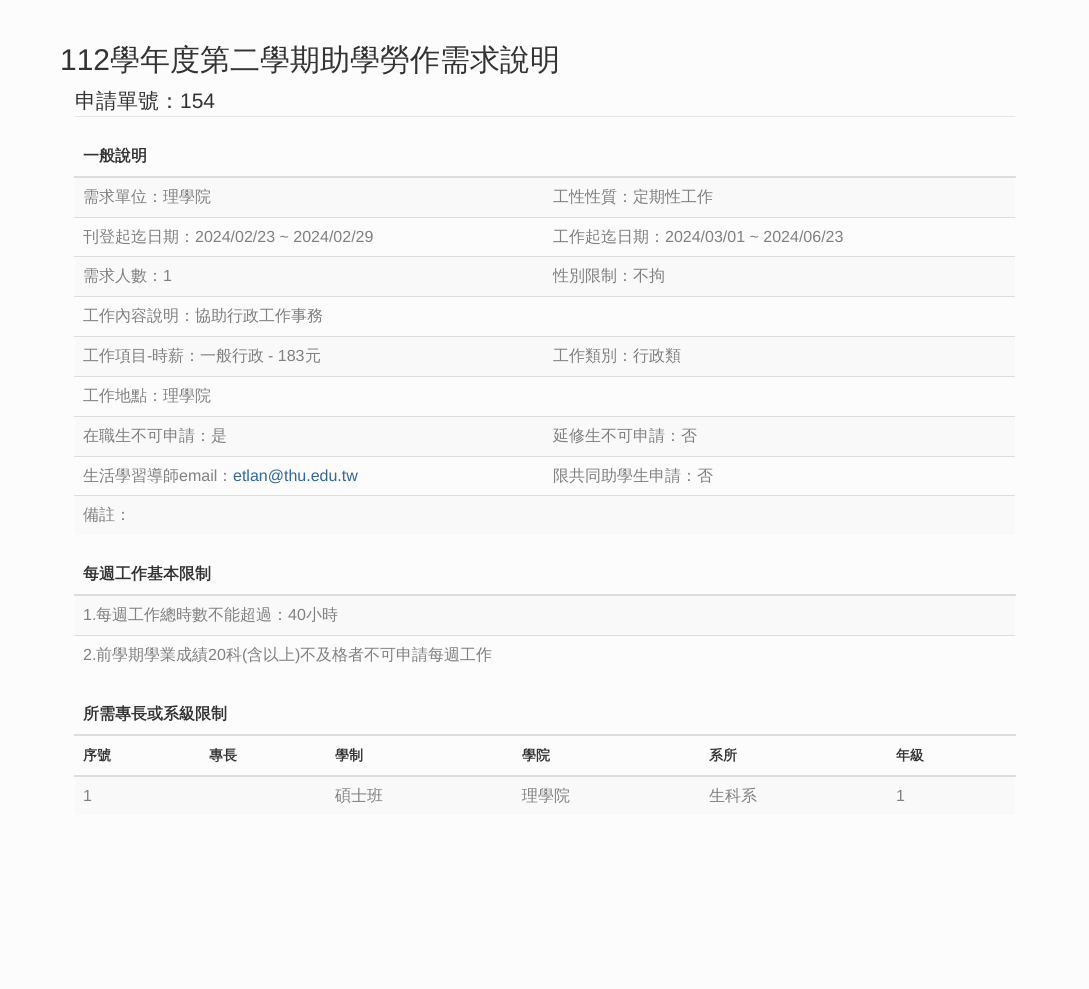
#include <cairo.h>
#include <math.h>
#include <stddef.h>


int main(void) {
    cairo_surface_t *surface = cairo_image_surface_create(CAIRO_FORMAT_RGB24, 1089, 989);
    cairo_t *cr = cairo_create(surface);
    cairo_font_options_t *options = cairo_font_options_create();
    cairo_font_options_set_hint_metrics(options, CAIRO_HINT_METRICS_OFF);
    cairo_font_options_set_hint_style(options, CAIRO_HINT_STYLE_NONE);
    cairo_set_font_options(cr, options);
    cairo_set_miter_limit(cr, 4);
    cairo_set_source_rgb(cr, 0.988, 0.988, 0.988);
    cairo_paint(cr);
    cairo_select_font_face(cr, "Liberation Sans", CAIRO_FONT_SLANT_NORMAL, CAIRO_FONT_WEIGHT_NORMAL);
    cairo_set_font_size(cr, 30);
    cairo_set_source_rgb(cr, 0.2, 0.2, 0.2);
    cairo_move_to(cr, 60, 70);
    cairo_show_text(cr, "112");
    cairo_select_font_face(cr, "WenQuanYi Zen Hei Medium", CAIRO_FONT_SLANT_NORMAL, CAIRO_FONT_WEIGHT_NORMAL);
    cairo_move_to(cr, 110, 70);
    cairo_show_text(cr, "學年度第二學期助學勞作需求說明");
    cairo_set_source_rgb(cr, 0.898, 0.898, 0.898);
    cairo_rectangle(cr, 75, 116, 940, 1);
    cairo_fill(cr);
    cairo_set_font_size(cr, 21);
    cairo_set_source_rgb(cr, 0.2, 0.2, 0.2);
    cairo_move_to(cr, 75, 108);
    cairo_show_text(cr, "申請單號：");
    cairo_select_font_face(cr, "Liberation Sans", CAIRO_FONT_SLANT_NORMAL, CAIRO_FONT_WEIGHT_NORMAL);
    cairo_move_to(cr, 180, 108);
    cairo_show_text(cr, "154");
    cairo_set_source_rgb(cr, 0.867, 0.867, 0.867);
    cairo_rectangle(cr, 74, 176, 942, 2);
    cairo_fill(cr);
    cairo_select_font_face(cr, "WenQuanYi Zen Hei", CAIRO_FONT_SLANT_NORMAL, CAIRO_FONT_WEIGHT_BOLD);
    cairo_set_font_size(cr, 16);
    cairo_set_source_rgb(cr, 0.2, 0.2, 0.2);
    cairo_move_to(cr, 83, 161);
    cairo_show_text(cr, "一般說明");
    cairo_set_source_rgb(cr, 0.976, 0.976, 0.976);
    cairo_rectangle(cr, 75, 178, 940, 39);
    cairo_fill(cr);
    cairo_select_font_face(cr, "WenQuanYi Zen Hei Medium", CAIRO_FONT_SLANT_NORMAL, CAIRO_FONT_WEIGHT_NORMAL);
    cairo_set_source_rgb(cr, 0.502, 0.502, 0.502);
    cairo_move_to(cr, 83, 202);
    cairo_show_text(cr, "需求單位：理學院");
    cairo_move_to(cr, 553, 202);
    cairo_show_text(cr, "工性性質：定期性工作");
    cairo_move_to(cr, 83, 242);
    cairo_show_text(cr, "刊登起迄日期：");
    cairo_select_font_face(cr, "Liberation Sans", CAIRO_FONT_SLANT_NORMAL, CAIRO_FONT_WEIGHT_NORMAL);
    cairo_move_to(cr, 195, 242);
    cairo_show_text(cr, "2024/02/23 ~ 2024/02/29");
    cairo_set_source_rgb(cr, 0.867, 0.867, 0.867);
    cairo_rectangle(cr, 74, 217, 941, 1);
    cairo_fill(cr);
    cairo_select_font_face(cr, "WenQuanYi Zen Hei Medium", CAIRO_FONT_SLANT_NORMAL, CAIRO_FONT_WEIGHT_NORMAL);
    cairo_set_source_rgb(cr, 0.502, 0.502, 0.502);
    cairo_move_to(cr, 553, 242);
    cairo_show_text(cr, "工作起迄日期：");
    cairo_select_font_face(cr, "Liberation Sans", CAIRO_FONT_SLANT_NORMAL, CAIRO_FONT_WEIGHT_NORMAL);
    cairo_move_to(cr, 665, 242);
    cairo_show_text(cr, "2024/03/01 ~ 2024/06/23");
    cairo_set_source_rgb(cr, 0.976, 0.976, 0.976);
    cairo_rectangle(cr, 75, 257, 940, 39);
    cairo_fill(cr);
    cairo_select_font_face(cr, "WenQuanYi Zen Hei Medium", CAIRO_FONT_SLANT_NORMAL, CAIRO_FONT_WEIGHT_NORMAL);
    cairo_set_source_rgb(cr, 0.502, 0.502, 0.502);
    cairo_move_to(cr, 83, 281);
    cairo_show_text(cr, "需求人數：");
    cairo_select_font_face(cr, "Liberation Sans", CAIRO_FONT_SLANT_NORMAL, CAIRO_FONT_WEIGHT_NORMAL);
    cairo_move_to(cr, 163, 281);
    cairo_show_text(cr, "1");
    cairo_set_source_rgb(cr, 0.867, 0.867, 0.867);
    cairo_rectangle(cr, 74, 256, 941, 1);
    cairo_fill(cr);
    cairo_select_font_face(cr, "WenQuanYi Zen Hei Medium", CAIRO_FONT_SLANT_NORMAL, CAIRO_FONT_WEIGHT_NORMAL);
    cairo_set_source_rgb(cr, 0.502, 0.502, 0.502);
    cairo_move_to(cr, 553, 281);
    cairo_show_text(cr, "性別限制：不拘");
    cairo_set_source_rgb(cr, 0.867, 0.867, 0.867);
    cairo_rectangle(cr, 74, 296, 941, 1);
    cairo_fill(cr);
    cairo_set_source_rgb(cr, 0.502, 0.502, 0.502);
    cairo_move_to(cr, 83, 321);
    cairo_show_text(cr, "工作內容說明：協助行政工作事務");
    cairo_set_source_rgb(cr, 0.976, 0.976, 0.976);
    cairo_rectangle(cr, 75, 337, 940, 39);
    cairo_fill(cr);
    cairo_set_source_rgb(cr, 0.502, 0.502, 0.502);
    cairo_move_to(cr, 83, 361);
    cairo_show_text(cr, "工作項目");
    cairo_select_font_face(cr, "Liberation Sans", CAIRO_FONT_SLANT_NORMAL, CAIRO_FONT_WEIGHT_NORMAL);
    cairo_move_to(cr, 147, 361);
    cairo_show_text(cr, "-");
    cairo_select_font_face(cr, "WenQuanYi Zen Hei Medium", CAIRO_FONT_SLANT_NORMAL, CAIRO_FONT_WEIGHT_NORMAL);
    cairo_move_to(cr, 152, 361);
    cairo_show_text(cr, "時薪：一般行政");
    cairo_select_font_face(cr, "Liberation Sans", CAIRO_FONT_SLANT_NORMAL, CAIRO_FONT_WEIGHT_NORMAL);
    cairo_move_to(cr, 268, 361);
    cairo_show_text(cr, "- 183");
    cairo_select_font_face(cr, "WenQuanYi Zen Hei Medium", CAIRO_FONT_SLANT_NORMAL, CAIRO_FONT_WEIGHT_NORMAL);
    cairo_move_to(cr, 305, 361);
    cairo_show_text(cr, "元");
    cairo_set_source_rgb(cr, 0.867, 0.867, 0.867);
    cairo_rectangle(cr, 74, 336, 941, 1);
    cairo_fill(cr);
    cairo_set_source_rgb(cr, 0.502, 0.502, 0.502);
    cairo_move_to(cr, 553, 361);
    cairo_show_text(cr, "工作類別：行政類");
    cairo_set_source_rgb(cr, 0.867, 0.867, 0.867);
    cairo_rectangle(cr, 74, 376, 941, 1);
    cairo_fill(cr);
    cairo_set_source_rgb(cr, 0.502, 0.502, 0.502);
    cairo_move_to(cr, 83, 401);
    cairo_show_text(cr, "工作地點：理學院");
    cairo_set_source_rgb(cr, 0.976, 0.976, 0.976);
    cairo_rectangle(cr, 75, 417, 940, 39);
    cairo_fill(cr);
    cairo_set_source_rgb(cr, 0.502, 0.502, 0.502);
    cairo_move_to(cr, 83, 441);
    cairo_show_text(cr, "在職生不可申請：是");
    cairo_set_source_rgb(cr, 0.867, 0.867, 0.867);
    cairo_rectangle(cr, 74, 416, 941, 1);
    cairo_fill(cr);
    cairo_set_source_rgb(cr, 0.502, 0.502, 0.502);
    cairo_move_to(cr, 553, 441);
    cairo_show_text(cr, "延修生不可申請：否");
    cairo_move_to(cr, 83, 481);
    cairo_show_text(cr, "生活學習導師");
    cairo_select_font_face(cr, "Liberation Sans", CAIRO_FONT_SLANT_NORMAL, CAIRO_FONT_WEIGHT_NORMAL);
    cairo_move_to(cr, 179, 481);
    cairo_show_text(cr, "email");
    cairo_select_font_face(cr, "WenQuanYi Zen Hei Medium", CAIRO_FONT_SLANT_NORMAL, CAIRO_FONT_WEIGHT_NORMAL);
    cairo_move_to(cr, 217, 481);
    cairo_show_text(cr, "：");
    cairo_select_font_face(cr, "Liberation Sans", CAIRO_FONT_SLANT_NORMAL, CAIRO_FONT_WEIGHT_NORMAL);
    cairo_set_source_rgb(cr, 0.2, 0.4, 0.6);
    cairo_move_to(cr, 233, 481);
    cairo_show_text(cr, "etlan@thu.edu.tw");
    cairo_set_source_rgb(cr, 0.867, 0.867, 0.867);
    cairo_rectangle(cr, 74, 456, 941, 1);
    cairo_fill(cr);
    cairo_select_font_face(cr, "WenQuanYi Zen Hei Medium", CAIRO_FONT_SLANT_NORMAL, CAIRO_FONT_WEIGHT_NORMAL);
    cairo_set_source_rgb(cr, 0.502, 0.502, 0.502);
    cairo_move_to(cr, 553, 481);
    cairo_show_text(cr, "限共同助學生申請：否");
    cairo_set_source_rgb(cr, 0.976, 0.976, 0.976);
    cairo_rectangle(cr, 75, 496, 940, 39);
    cairo_fill(cr);
    cairo_set_source_rgb(cr, 0.867, 0.867, 0.867);
    cairo_rectangle(cr, 74, 495, 941, 1);
    cairo_fill(cr);
    cairo_set_source_rgb(cr, 0.502, 0.502, 0.502);
    cairo_move_to(cr, 83, 520);
    cairo_show_text(cr, "備註：");
    cairo_set_source_rgb(cr, 0.867, 0.867, 0.867);
    cairo_rectangle(cr, 74, 594, 942, 2);
    cairo_fill(cr);
    cairo_select_font_face(cr, "WenQuanYi Zen Hei", CAIRO_FONT_SLANT_NORMAL, CAIRO_FONT_WEIGHT_BOLD);
    cairo_set_source_rgb(cr, 0.2, 0.2, 0.2);
    cairo_move_to(cr, 83, 579);
    cairo_show_text(cr, "每週工作基本限制");
    cairo_set_source_rgb(cr, 0.976, 0.976, 0.976);
    cairo_rectangle(cr, 75, 596, 940, 39);
    cairo_fill(cr);
    cairo_select_font_face(cr, "Liberation Sans", CAIRO_FONT_SLANT_NORMAL, CAIRO_FONT_WEIGHT_NORMAL);
    cairo_set_source_rgb(cr, 0.502, 0.502, 0.502);
    cairo_move_to(cr, 83, 620);
    cairo_show_text(cr, "1.");
    cairo_select_font_face(cr, "WenQuanYi Zen Hei Medium", CAIRO_FONT_SLANT_NORMAL, CAIRO_FONT_WEIGHT_NORMAL);
    cairo_move_to(cr, 96, 620);
    cairo_show_text(cr, "每週工作總時數不能超過：");
    cairo_select_font_face(cr, "Liberation Sans", CAIRO_FONT_SLANT_NORMAL, CAIRO_FONT_WEIGHT_NORMAL);
    cairo_move_to(cr, 288, 620);
    cairo_show_text(cr, "40");
    cairo_select_font_face(cr, "WenQuanYi Zen Hei Medium", CAIRO_FONT_SLANT_NORMAL, CAIRO_FONT_WEIGHT_NORMAL);
    cairo_move_to(cr, 306, 620);
    cairo_show_text(cr, "小時");
    cairo_set_source_rgb(cr, 0.867, 0.867, 0.867);
    cairo_rectangle(cr, 74, 635, 941, 1);
    cairo_fill(cr);
    cairo_select_font_face(cr, "Liberation Sans", CAIRO_FONT_SLANT_NORMAL, CAIRO_FONT_WEIGHT_NORMAL);
    cairo_set_source_rgb(cr, 0.502, 0.502, 0.502);
    cairo_move_to(cr, 83, 660);
    cairo_show_text(cr, "2.");
    cairo_select_font_face(cr, "WenQuanYi Zen Hei Medium", CAIRO_FONT_SLANT_NORMAL, CAIRO_FONT_WEIGHT_NORMAL);
    cairo_move_to(cr, 96, 660);
    cairo_show_text(cr, "前學期學業成績");
    cairo_select_font_face(cr, "Liberation Sans", CAIRO_FONT_SLANT_NORMAL, CAIRO_FONT_WEIGHT_NORMAL);
    cairo_move_to(cr, 208, 660);
    cairo_show_text(cr, "20");
    cairo_select_font_face(cr, "WenQuanYi Zen Hei Medium", CAIRO_FONT_SLANT_NORMAL, CAIRO_FONT_WEIGHT_NORMAL);
    cairo_move_to(cr, 226, 660);
    cairo_show_text(cr, "科");
    cairo_select_font_face(cr, "Liberation Sans", CAIRO_FONT_SLANT_NORMAL, CAIRO_FONT_WEIGHT_NORMAL);
    cairo_move_to(cr, 242, 660);
    cairo_show_text(cr, "(");
    cairo_select_font_face(cr, "WenQuanYi Zen Hei Medium", CAIRO_FONT_SLANT_NORMAL, CAIRO_FONT_WEIGHT_NORMAL);
    cairo_move_to(cr, 247, 660);
    cairo_show_text(cr, "含以上");
    cairo_select_font_face(cr, "Liberation Sans", CAIRO_FONT_SLANT_NORMAL, CAIRO_FONT_WEIGHT_NORMAL);
    cairo_move_to(cr, 295, 660);
    cairo_show_text(cr, ")");
    cairo_select_font_face(cr, "WenQuanYi Zen Hei Medium", CAIRO_FONT_SLANT_NORMAL, CAIRO_FONT_WEIGHT_NORMAL);
    cairo_move_to(cr, 300, 660);
    cairo_show_text(cr, "不及格者不可申請每週工作");
    cairo_set_source_rgb(cr, 0.867, 0.867, 0.867);
    cairo_rectangle(cr, 74, 734, 942, 2);
    cairo_fill(cr);
    cairo_select_font_face(cr, "WenQuanYi Zen Hei", CAIRO_FONT_SLANT_NORMAL, CAIRO_FONT_WEIGHT_BOLD);
    cairo_set_source_rgb(cr, 0.2, 0.2, 0.2);
    cairo_move_to(cr, 83, 719);
    cairo_show_text(cr, "所需專長或系級限制");
    cairo_set_font_size(cr, 14);
    cairo_move_to(cr, 83, 760);
    cairo_show_text(cr, "序號");
    cairo_move_to(cr, 209, 760);
    cairo_show_text(cr, "專長");
    cairo_move_to(cr, 335, 760);
    cairo_show_text(cr, "學制");
    cairo_move_to(cr, 522, 760);
    cairo_show_text(cr, "學院");
    cairo_move_to(cr, 709, 760);
    cairo_show_text(cr, "系所");
    cairo_set_source_rgb(cr, 0.867, 0.867, 0.867);
    cairo_rectangle(cr, 74, 775, 942, 2);
    cairo_fill(cr);
    cairo_set_source_rgb(cr, 0.2, 0.2, 0.2);
    cairo_move_to(cr, 896, 760);
    cairo_show_text(cr, "年級");
    cairo_set_source_rgb(cr, 0.976, 0.976, 0.976);
    cairo_rectangle(cr, 75, 777, 940, 38);
    cairo_fill(cr);
    cairo_select_font_face(cr, "Liberation Sans", CAIRO_FONT_SLANT_NORMAL, CAIRO_FONT_WEIGHT_NORMAL);
    cairo_set_font_size(cr, 16);
    cairo_set_source_rgb(cr, 0.502, 0.502, 0.502);
    cairo_move_to(cr, 83, 801);
    cairo_show_text(cr, "1");
    cairo_select_font_face(cr, "WenQuanYi Zen Hei Medium", CAIRO_FONT_SLANT_NORMAL, CAIRO_FONT_WEIGHT_NORMAL);
    cairo_move_to(cr, 335, 801);
    cairo_show_text(cr, "碩士班");
    cairo_move_to(cr, 522, 801);
    cairo_show_text(cr, "理學院");
    cairo_move_to(cr, 709, 801);
    cairo_show_text(cr, "生科系");
    cairo_select_font_face(cr, "Liberation Sans", CAIRO_FONT_SLANT_NORMAL, CAIRO_FONT_WEIGHT_NORMAL);
    cairo_move_to(cr, 896, 801);
    cairo_show_text(cr, "1");
    cairo_surface_write_to_png(surface, "page.png");
    cairo_font_options_destroy(options);
    cairo_destroy(cr);
    cairo_surface_destroy(surface);
    return 0;
}
